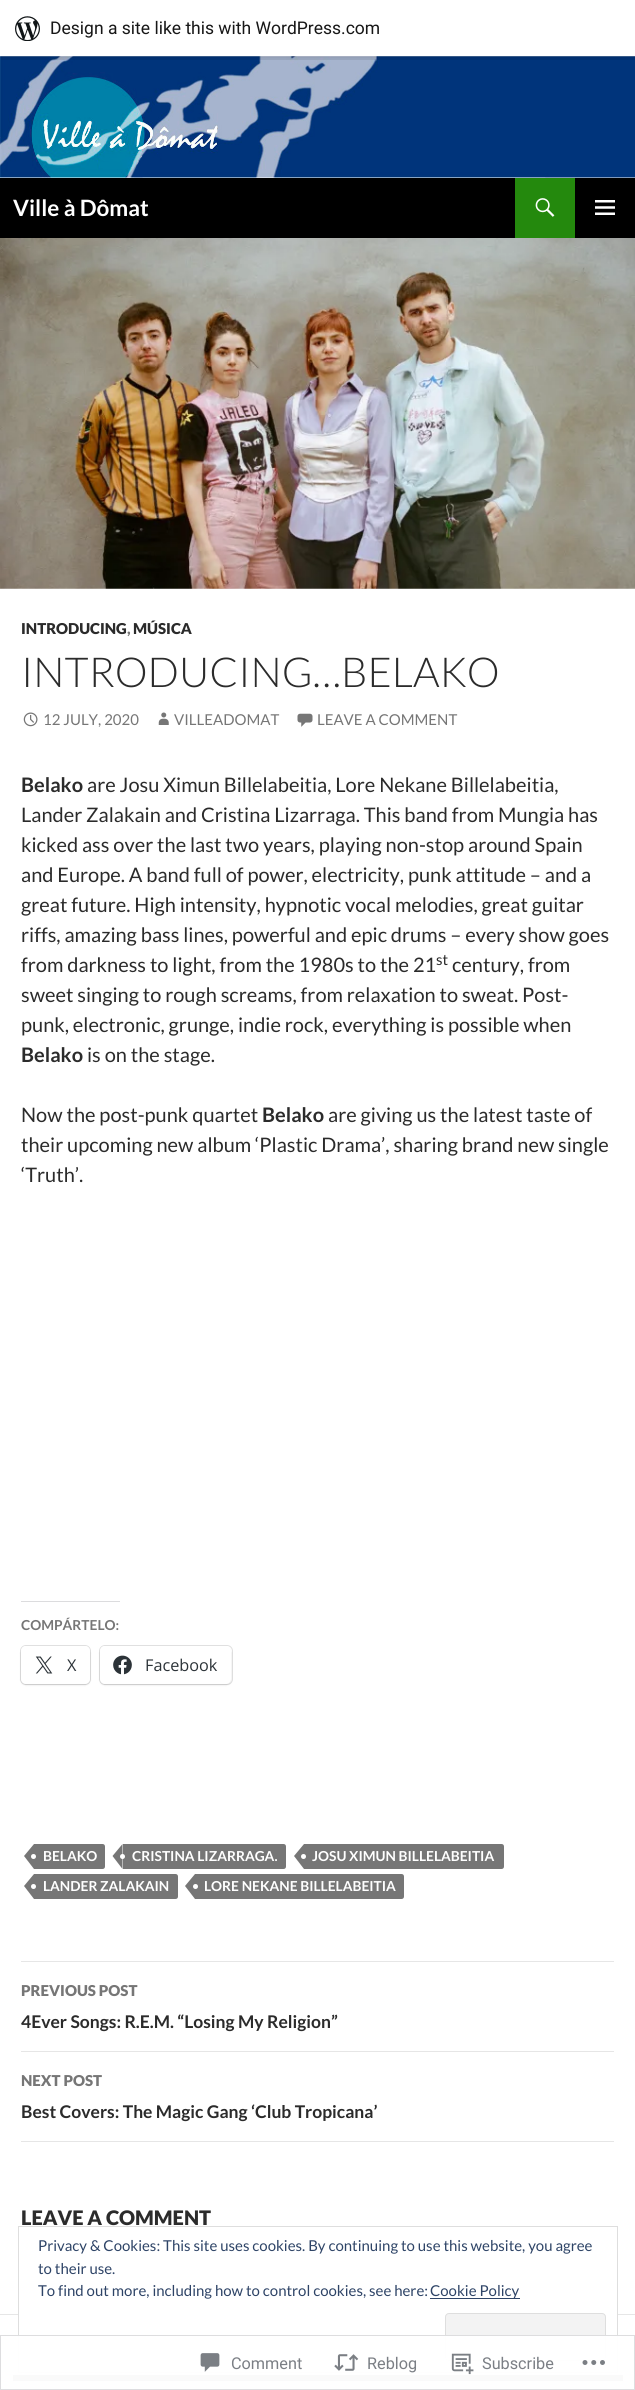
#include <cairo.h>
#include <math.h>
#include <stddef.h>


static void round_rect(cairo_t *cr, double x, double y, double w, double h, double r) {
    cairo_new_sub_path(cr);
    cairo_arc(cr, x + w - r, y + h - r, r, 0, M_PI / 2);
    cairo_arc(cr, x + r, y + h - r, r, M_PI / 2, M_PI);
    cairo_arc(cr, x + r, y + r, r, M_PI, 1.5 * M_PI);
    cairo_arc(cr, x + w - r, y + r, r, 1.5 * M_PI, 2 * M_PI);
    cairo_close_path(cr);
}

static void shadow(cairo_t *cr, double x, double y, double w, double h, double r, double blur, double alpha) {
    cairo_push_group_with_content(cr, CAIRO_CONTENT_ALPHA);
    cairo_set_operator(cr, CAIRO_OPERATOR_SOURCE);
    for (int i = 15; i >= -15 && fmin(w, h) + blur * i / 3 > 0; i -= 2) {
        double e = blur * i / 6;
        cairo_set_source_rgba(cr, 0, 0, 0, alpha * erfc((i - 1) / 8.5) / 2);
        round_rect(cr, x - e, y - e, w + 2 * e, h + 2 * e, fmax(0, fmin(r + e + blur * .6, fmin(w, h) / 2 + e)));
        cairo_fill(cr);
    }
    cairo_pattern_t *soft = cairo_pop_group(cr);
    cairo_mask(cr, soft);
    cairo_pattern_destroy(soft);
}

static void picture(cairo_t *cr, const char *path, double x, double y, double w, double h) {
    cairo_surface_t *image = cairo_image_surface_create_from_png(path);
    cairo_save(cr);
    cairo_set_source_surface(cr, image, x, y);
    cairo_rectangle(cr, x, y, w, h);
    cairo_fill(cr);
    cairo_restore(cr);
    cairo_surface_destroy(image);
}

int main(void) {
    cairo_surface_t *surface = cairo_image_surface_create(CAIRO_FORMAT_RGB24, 635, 2390);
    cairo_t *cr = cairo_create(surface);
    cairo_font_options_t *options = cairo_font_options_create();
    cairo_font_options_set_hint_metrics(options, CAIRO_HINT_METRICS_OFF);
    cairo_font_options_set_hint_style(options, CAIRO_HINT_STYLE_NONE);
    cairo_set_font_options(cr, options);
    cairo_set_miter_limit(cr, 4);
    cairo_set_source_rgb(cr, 1, 1, 1);
    cairo_paint(cr);
    picture(cr, "img2.png", 0, 56, 635, 122);
    cairo_set_source_rgb(cr, 0, 0, 0);
    shadow(cr, 0, 1, 635, 57, 0, 1, 0.05);
    cairo_set_source_rgba(cr, 0, 0, 0, 0.08);
    cairo_new_path(cr);
    cairo_move_to(cr, 1, 56);
    cairo_line_to(cr, 1, 60);
    cairo_line_to(cr, 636, 60);
    cairo_line_to(cr, 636, 4);
    cairo_line_to(cr, 635, 4);
    cairo_line_to(cr, 635, 56);
    cairo_close_path(cr);
    cairo_fill(cr);
    cairo_set_source_rgb(cr, 1, 1, 1);
    cairo_rectangle(cr, 0, 0, 635, 56);
    cairo_fill(cr);
    picture(cr, "img1.png", 15, 16, 25, 25);
    cairo_select_font_face(cr, "Roboto", CAIRO_FONT_SLANT_NORMAL, CAIRO_FONT_WEIGHT_NORMAL);
    cairo_set_font_size(cr, 17.5);
    cairo_set_source_rgb(cr, 0.09, 0.09, 0.09);
    cairo_move_to(cr, 50, 34);
    cairo_show_text(cr, "Design a site like this with WordPress.com");
    cairo_set_source_rgb(cr, 0, 0, 0);
    cairo_rectangle(cr, 0, 178, 635, 60);
    cairo_fill(cr);
    cairo_select_font_face(cr, "Lato", CAIRO_FONT_SLANT_NORMAL, CAIRO_FONT_WEIGHT_BOLD);
    cairo_set_font_size(cr, 22.5);
    cairo_set_source_rgb(cr, 1, 1, 1);
    cairo_move_to(cr, 13, 216);
    cairo_show_text(cr, "Ville à Dômat");
    cairo_set_source_rgb(cr, 0.141, 0.537, 0.051);
    cairo_rectangle(cr, 515, 178, 60, 60);
    cairo_fill(cr);
    picture(cr, "img3.png", 535, 198, 20, 19);
    picture(cr, "img4.png", 595, 200, 20, 15);
    picture(cr, "img5.png", 0, 588, 635, 1);
    picture(cr, "img6.png", 0, 238, 635, 351);
    cairo_select_font_face(cr, "Lato Black", CAIRO_FONT_SLANT_NORMAL, CAIRO_FONT_WEIGHT_NORMAL);
    cairo_set_font_size(cr, 15);
    cairo_set_source_rgb(cr, 0.169, 0.169, 0.169);
    cairo_move_to(cr, 21, 634);
    cairo_show_text(cr, "INTRODUCING");
    cairo_set_source_rgb(cr, 0.463, 0.463, 0.463);
    cairo_move_to(cr, 127, 634);
    cairo_show_text(cr, ",");
    cairo_set_source_rgb(cr, 0.169, 0.169, 0.169);
    cairo_move_to(cr, 133, 634);
    cairo_show_text(cr, "MÚSICA");
    cairo_select_font_face(cr, "Lato Light", CAIRO_FONT_SLANT_NORMAL, CAIRO_FONT_WEIGHT_NORMAL);
    cairo_set_font_size(cr, 41.25);
    cairo_move_to(cr, 21, 687);
    cairo_show_text(cr, "INTRODUCING…BELAKO");
    picture(cr, "img7.png", 23, 712, 15, 15);
    cairo_select_font_face(cr, "Lato", CAIRO_FONT_SLANT_NORMAL, CAIRO_FONT_WEIGHT_NORMAL);
    cairo_set_font_size(cr, 15);
    cairo_set_source_rgb(cr, 0.463, 0.463, 0.463);
    cairo_move_to(cr, 43, 725);
    cairo_show_text(cr, "12 JULY, 2020");
    picture(cr, "img8.png", 158, 712, 11, 13);
    cairo_move_to(cr, 174, 725);
    cairo_show_text(cr, "VILLEADOMAT");
    picture(cr, "img9.png", 297, 713, 16, 14);
    cairo_move_to(cr, 317, 725);
    cairo_show_text(cr, "LEAVE A COMMENT");
    cairo_select_font_face(cr, "Lato", CAIRO_FONT_SLANT_NORMAL, CAIRO_FONT_WEIGHT_BOLD);
    cairo_set_font_size(cr, 20);
    cairo_set_source_rgb(cr, 0.169, 0.169, 0.169);
    cairo_move_to(cr, 21, 792);
    cairo_show_text(cr, "Belako");
    cairo_select_font_face(cr, "Lato", CAIRO_FONT_SLANT_NORMAL, CAIRO_FONT_WEIGHT_NORMAL);
    cairo_move_to(cr, 87, 792);
    cairo_show_text(cr, "are Josu Ximun Billelabeitia, Lore Nekane Billelabeitia,");
    cairo_move_to(cr, 21, 822);
    cairo_show_text(cr, "Lander Zalakain and Cristina Lizarraga. This band from Mungia has");
    cairo_move_to(cr, 21, 852);
    cairo_show_text(cr, "kicked ass over the last two years, playing non-stop around Spain");
    cairo_move_to(cr, 21, 882);
    cairo_show_text(cr, "and Europe. A band full of power, electricity, punk attitude – and a");
    cairo_move_to(cr, 21, 912);
    cairo_show_text(cr, "great future. High intensity, hypnotic vocal melodies, great guitar");
    cairo_move_to(cr, 21, 942);
    cairo_show_text(cr, "riffs, amazing bass lines, powerful and epic drums – every show goes");
    cairo_move_to(cr, 21, 972);
    cairo_show_text(cr, "from darkness to light, from the 1980s to the 21");
    cairo_set_font_size(cr, 15);
    cairo_move_to(cr, 436, 965);
    cairo_show_text(cr, "st");
    cairo_set_font_size(cr, 20);
    cairo_move_to(cr, 452, 972);
    cairo_show_text(cr, "century, from");
    cairo_move_to(cr, 21, 1002);
    cairo_show_text(cr, "sweet singing to rough screams, from relaxation to sweat. Post-");
    cairo_move_to(cr, 21, 1032);
    cairo_show_text(cr, "punk, electronic, grunge, indie rock, everything is possible when");
    cairo_select_font_face(cr, "Lato", CAIRO_FONT_SLANT_NORMAL, CAIRO_FONT_WEIGHT_BOLD);
    cairo_move_to(cr, 21, 1062);
    cairo_show_text(cr, "Belako");
    cairo_select_font_face(cr, "Lato", CAIRO_FONT_SLANT_NORMAL, CAIRO_FONT_WEIGHT_NORMAL);
    cairo_move_to(cr, 87, 1062);
    cairo_show_text(cr, "is on the stage.");
    cairo_move_to(cr, 21, 1122);
    cairo_show_text(cr, "Now the post-punk quartet");
    cairo_select_font_face(cr, "Lato", CAIRO_FONT_SLANT_NORMAL, CAIRO_FONT_WEIGHT_BOLD);
    cairo_move_to(cr, 262, 1122);
    cairo_show_text(cr, "Belako");
    cairo_select_font_face(cr, "Lato", CAIRO_FONT_SLANT_NORMAL, CAIRO_FONT_WEIGHT_NORMAL);
    cairo_move_to(cr, 328, 1122);
    cairo_show_text(cr, "are giving us the latest taste of");
    cairo_move_to(cr, 21, 1152);
    cairo_show_text(cr, "their upcoming new album ‘Plastic Drama’, sharing brand new single");
    cairo_move_to(cr, 21, 1182);
    cairo_show_text(cr, "‘Truth’.");
    cairo_set_source_rgb(cr, 0.863, 0.863, 0.871);
    cairo_rectangle(cr, 21, 1601, 99, 1);
    cairo_fill(cr);
    cairo_select_font_face(cr, "Lato", CAIRO_FONT_SLANT_NORMAL, CAIRO_FONT_WEIGHT_BOLD);
    cairo_set_font_size(cr, 13.75);
    cairo_set_source_rgb(cr, 0.463, 0.463, 0.463);
    cairo_move_to(cr, 21, 1630);
    cairo_show_text(cr, "COMPÁRTELO:");
    round_rect(cr, 20.5, 1645.5, 70, 39, 5.5);
    cairo_set_source_rgb(cr, 0.878, 0.878, 0.878);
    cairo_set_line_width(cr, 1);
    cairo_stroke(cr);
    cairo_set_source_rgb(cr, 0, 0, 0);
    shadow(cr, 21, 1648, 69, 37, 5, 1, 0.12);
    cairo_set_source_rgb(cr, 1, 1, 1);
    round_rect(cr, 21, 1646, 69, 38, 5);
    cairo_fill(cr);
    picture(cr, "img10.png", 35, 1656, 18, 18);
    cairo_select_font_face(cr, "Open Sans", CAIRO_FONT_SLANT_NORMAL, CAIRO_FONT_WEIGHT_NORMAL);
    cairo_set_font_size(cr, 16.25);
    cairo_set_source_rgb(cr, 0.173, 0.2, 0.22);
    cairo_move_to(cr, 67, 1671);
    cairo_show_text(cr, "X");
    round_rect(cr, 99.5, 1645.5, 133, 39, 5.5);
    cairo_set_source_rgb(cr, 0.878, 0.878, 0.878);
    cairo_stroke(cr);
    cairo_set_source_rgb(cr, 0, 0, 0);
    shadow(cr, 100, 1648, 131, 37, 5, 1, 0.12);
    cairo_set_source_rgb(cr, 1, 1, 1);
    round_rect(cr, 100, 1646, 131, 38, 5);
    cairo_fill(cr);
    picture(cr, "img11.png", 113, 1655, 19, 20);
    cairo_set_source_rgb(cr, 0.173, 0.2, 0.22);
    cairo_move_to(cr, 145, 1671);
    cairo_show_text(cr, "Facebook");
    cairo_set_source_rgb(cr, 0.463, 0.463, 0.463);
    cairo_new_path(cr);
    cairo_move_to(cr, 34, 1844);
    cairo_line_to(cr, 102.5, 1844);
    cairo_curve_to(cr, 104, 1844, 105, 1845, 105, 1846.5);
    cairo_line_to(cr, 105, 1866.5);
    cairo_curve_to(cr, 105, 1868, 104, 1869, 102.5, 1869);
    cairo_line_to(cr, 34, 1869);
    cairo_close_path(cr);
    cairo_fill(cr);
    cairo_new_path(cr);
    cairo_move_to(cr, 34, 1844);
    cairo_line_to(cr, 34, 1869);
    cairo_line_to(cr, 24, 1856);
    cairo_close_path(cr);
    cairo_fill(cr);
    cairo_select_font_face(cr, "Lato", CAIRO_FONT_SLANT_NORMAL, CAIRO_FONT_WEIGHT_BOLD);
    cairo_set_font_size(cr, 13.75);
    cairo_set_source_rgb(cr, 1, 1, 1);
    cairo_move_to(cr, 43, 1861);
    cairo_show_text(cr, "BELAKO");
    cairo_new_path(cr);
    cairo_arc(cr, 33.5, 1856.5, 2.5, 0, 2 * M_PI);
    cairo_fill(cr);
    cairo_set_source_rgb(cr, 0.463, 0.463, 0.463);
    cairo_new_path(cr);
    cairo_move_to(cr, 123, 1844);
    cairo_line_to(cr, 283.5, 1844);
    cairo_curve_to(cr, 285, 1844, 286, 1845, 286, 1846.5);
    cairo_line_to(cr, 286, 1866.5);
    cairo_curve_to(cr, 286, 1868, 285, 1869, 283.5, 1869);
    cairo_line_to(cr, 123, 1869);
    cairo_close_path(cr);
    cairo_fill(cr);
    cairo_new_path(cr);
    cairo_move_to(cr, 122.5, 1844);
    cairo_line_to(cr, 122.5, 1869);
    cairo_line_to(cr, 112.5, 1856);
    cairo_close_path(cr);
    cairo_fill(cr);
    cairo_set_source_rgb(cr, 1, 1, 1);
    cairo_move_to(cr, 132, 1861);
    cairo_show_text(cr, "CRISTINA LIZARRAGA.");
    cairo_new_path(cr);
    cairo_arc(cr, 122.5, 1856.5, 2.5, 0, 2 * M_PI);
    cairo_fill(cr);
    cairo_set_source_rgb(cr, 0.463, 0.463, 0.463);
    cairo_new_path(cr);
    cairo_move_to(cr, 304, 1844);
    cairo_line_to(cr, 501.5, 1844);
    cairo_curve_to(cr, 503, 1844, 504, 1845, 504, 1846.5);
    cairo_line_to(cr, 504, 1866.5);
    cairo_curve_to(cr, 504, 1868, 503, 1869, 501.5, 1869);
    cairo_line_to(cr, 304, 1869);
    cairo_close_path(cr);
    cairo_fill(cr);
    cairo_new_path(cr);
    cairo_move_to(cr, 304, 1844);
    cairo_line_to(cr, 304, 1869);
    cairo_line_to(cr, 294, 1856);
    cairo_close_path(cr);
    cairo_fill(cr);
    cairo_set_source_rgb(cr, 1, 1, 1);
    cairo_move_to(cr, 312, 1861);
    cairo_show_text(cr, "JOSU XIMUN BILLELABEITIA");
    cairo_new_path(cr);
    cairo_arc(cr, 303.5, 1856.5, 2.5, 0, 2 * M_PI);
    cairo_fill(cr);
    cairo_set_source_rgb(cr, 0.463, 0.463, 0.463);
    cairo_new_path(cr);
    cairo_move_to(cr, 34, 1874);
    cairo_line_to(cr, 175.5, 1874);
    cairo_curve_to(cr, 177, 1874, 178, 1875, 178, 1876.5);
    cairo_line_to(cr, 178, 1896.5);
    cairo_curve_to(cr, 178, 1898, 177, 1899, 175.5, 1899);
    cairo_line_to(cr, 34, 1899);
    cairo_close_path(cr);
    cairo_fill(cr);
    cairo_new_path(cr);
    cairo_move_to(cr, 34, 1874);
    cairo_line_to(cr, 34, 1899);
    cairo_line_to(cr, 24, 1886);
    cairo_close_path(cr);
    cairo_fill(cr);
    cairo_set_source_rgb(cr, 1, 1, 1);
    cairo_move_to(cr, 43, 1891);
    cairo_show_text(cr, "LANDER ZALAKAIN");
    cairo_new_path(cr);
    cairo_arc(cr, 33.5, 1886.5, 2.5, 0, 2 * M_PI);
    cairo_fill(cr);
    cairo_set_source_rgb(cr, 0.463, 0.463, 0.463);
    cairo_new_path(cr);
    cairo_move_to(cr, 195, 1874);
    cairo_line_to(cr, 401.5, 1874);
    cairo_curve_to(cr, 403, 1874, 404, 1875, 404, 1876.5);
    cairo_line_to(cr, 404, 1896.5);
    cairo_curve_to(cr, 404, 1898, 403, 1899, 401.5, 1899);
    cairo_line_to(cr, 195, 1899);
    cairo_close_path(cr);
    cairo_fill(cr);
    cairo_new_path(cr);
    cairo_move_to(cr, 195, 1874);
    cairo_line_to(cr, 195, 1899);
    cairo_line_to(cr, 185, 1886);
    cairo_close_path(cr);
    cairo_fill(cr);
    cairo_set_source_rgb(cr, 1, 1, 1);
    cairo_arc(cr, 195.5, 1886.5, 2.5, 0, 2 * M_PI);
    cairo_fill(cr);
    cairo_move_to(cr, 204, 1891);
    cairo_show_text(cr, "LORE NEKANE BILLELABEITIA");
    cairo_set_source_rgb(cr, 0.902, 0.902, 0.902);
    cairo_rectangle(cr, 21, 1961, 593, 1);
    cairo_fill(cr);
    cairo_rectangle(cr, 21, 2051, 593, 1);
    cairo_fill(cr);
    cairo_select_font_face(cr, "Lato Black", CAIRO_FONT_SLANT_NORMAL, CAIRO_FONT_WEIGHT_NORMAL);
    cairo_set_font_size(cr, 15);
    cairo_set_source_rgb(cr, 0.463, 0.463, 0.463);
    cairo_move_to(cr, 21, 1996);
    cairo_show_text(cr, "PREVIOUS POST");
    cairo_select_font_face(cr, "Lato", CAIRO_FONT_SLANT_NORMAL, CAIRO_FONT_WEIGHT_BOLD);
    cairo_set_font_size(cr, 17.5);
    cairo_set_source_rgb(cr, 0.169, 0.169, 0.169);
    cairo_move_to(cr, 21, 2028);
    cairo_show_text(cr, "4Ever Songs: R.E.M. “Losing My Religion”");
    cairo_set_source_rgb(cr, 0.902, 0.902, 0.902);
    cairo_rectangle(cr, 21, 2141, 593, 1);
    cairo_fill(cr);
    cairo_select_font_face(cr, "Lato Black", CAIRO_FONT_SLANT_NORMAL, CAIRO_FONT_WEIGHT_NORMAL);
    cairo_set_font_size(cr, 15);
    cairo_set_source_rgb(cr, 0.463, 0.463, 0.463);
    cairo_move_to(cr, 21, 2086);
    cairo_show_text(cr, "NEXT POST");
    cairo_select_font_face(cr, "Lato", CAIRO_FONT_SLANT_NORMAL, CAIRO_FONT_WEIGHT_BOLD);
    cairo_set_font_size(cr, 17.5);
    cairo_set_source_rgb(cr, 0.169, 0.169, 0.169);
    cairo_move_to(cr, 21, 2118);
    cairo_show_text(cr, "Best Covers: The Magic Gang ‘Club Tropicana’");
    cairo_select_font_face(cr, "Lato Black", CAIRO_FONT_SLANT_NORMAL, CAIRO_FONT_WEIGHT_NORMAL);
    cairo_set_font_size(cr, 20);
    cairo_move_to(cr, 21, 2225);
    cairo_show_text(cr, "LEAVE A COMMENT");
    cairo_set_source_rgb(cr, 0.902, 0.902, 0.902);
    cairo_rectangle(cr, 0, 2314, 635, 1);
    cairo_fill(cr);
    cairo_set_source_rgb(cr, 0, 0, 0);
    cairo_rectangle(cr, 13, 2375, 610, 6);
    cairo_fill(cr);
    cairo_set_source_rgb(cr, 1, 1, 1);
    cairo_rectangle(cr, 19, 2314, 598, 1);
    cairo_fill(cr);
    cairo_rectangle(cr, 18.5, 2226.5, 599, 146);
    cairo_set_source_rgb(cr, 0.871, 0.871, 0.871);
    cairo_stroke(cr);
    cairo_select_font_face(cr, "Lato", CAIRO_FONT_SLANT_NORMAL, CAIRO_FONT_WEIGHT_NORMAL);
    cairo_set_font_size(cr, 15);
    cairo_set_source_rgb(cr, 0.18, 0.267, 0.404);
    cairo_move_to(cr, 38, 2251);
    cairo_show_text(cr, "Privacy & Cookies: This site uses cookies. By continuing to use this website, you agree");
    cairo_move_to(cr, 38, 2274);
    cairo_show_text(cr, "to their use.");
    cairo_move_to(cr, 38, 2296);
    cairo_show_text(cr, "To find out more, including how to control cookies, see here:");
    cairo_rectangle(cr, 430, 2298, 90, 1);
    cairo_fill(cr);
    cairo_move_to(cr, 430, 2296);
    cairo_show_text(cr, "Cookie Policy");
    cairo_set_source_rgb(cr, 0.953, 0.953, 0.953);
    round_rect(cr, 445.5, 2313.5, 160, 47, 3.5);
    cairo_fill_preserve(cr);
    cairo_set_source_rgb(cr, 0.871, 0.871, 0.871);
    cairo_stroke(cr);
    cairo_set_source_rgba(cr, 1, 1, 1, 0.98);
    cairo_rectangle(cr, 13, 2335, 610, 46);
    cairo_fill(cr);
    cairo_rectangle(cr, 0.5, 2335.5, 634, 54);
    cairo_set_source_rgba(cr, 0.863, 0.863, 0.871, 0.98);
    cairo_stroke(cr);
    picture(cr, "img12.png", 200, 2353, 20, 19);
    cairo_select_font_face(cr, "Roboto", CAIRO_FONT_SLANT_NORMAL, CAIRO_FONT_WEIGHT_NORMAL);
    cairo_set_font_size(cr, 16.25);
    cairo_set_source_rgb(cr, 0.482, 0.498, 0.522);
    cairo_move_to(cr, 231, 2369);
    cairo_show_text(cr, "Comment");
    picture(cr, "img13.png", 334, 2354, 25, 17);
    cairo_move_to(cr, 367, 2369);
    cairo_show_text(cr, "Reblog");
    picture(cr, "img14.png", 451, 2353, 23, 22);
    cairo_move_to(cr, 482, 2369);
    cairo_show_text(cr, "Subscribe");
    picture(cr, "img15.png", 582, 2360, 23, 5);
    cairo_surface_write_to_png(surface, "page.png");
    cairo_font_options_destroy(options);
    cairo_destroy(cr);
    cairo_surface_destroy(surface);
    return 0;
}
